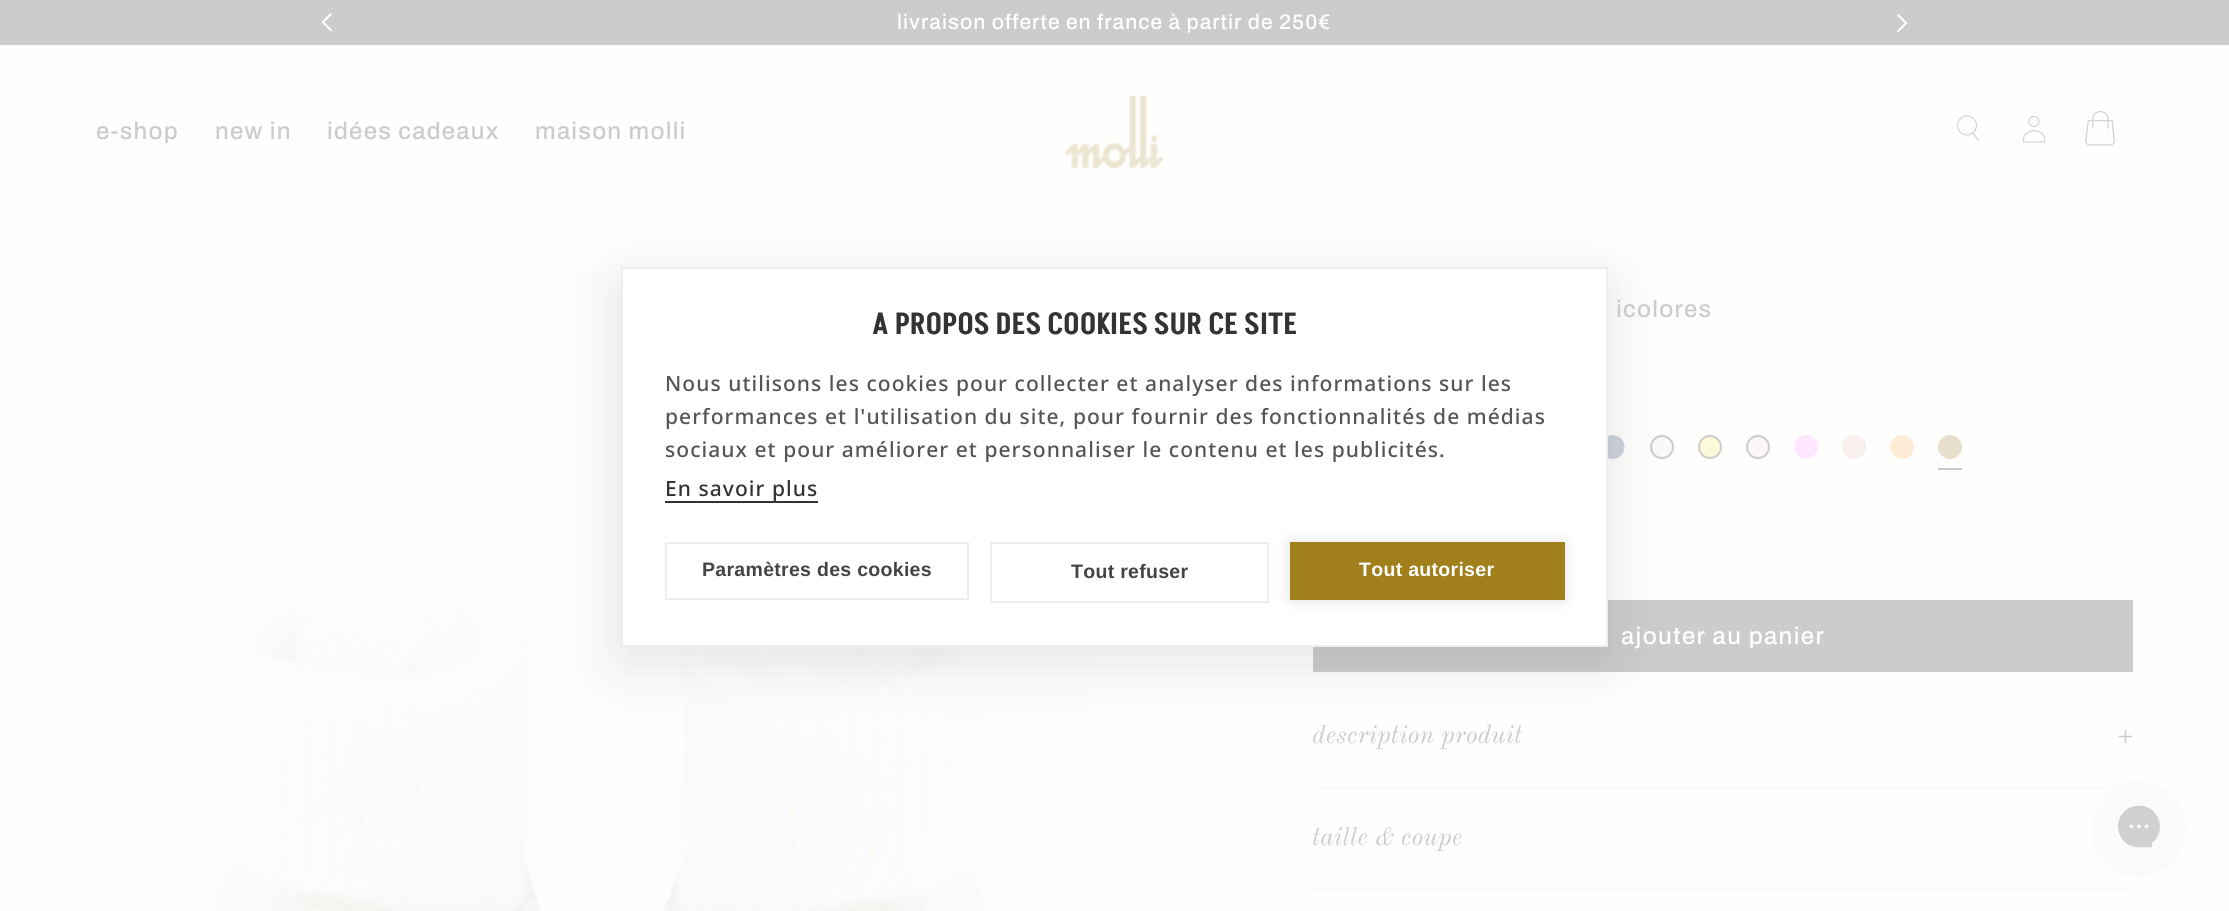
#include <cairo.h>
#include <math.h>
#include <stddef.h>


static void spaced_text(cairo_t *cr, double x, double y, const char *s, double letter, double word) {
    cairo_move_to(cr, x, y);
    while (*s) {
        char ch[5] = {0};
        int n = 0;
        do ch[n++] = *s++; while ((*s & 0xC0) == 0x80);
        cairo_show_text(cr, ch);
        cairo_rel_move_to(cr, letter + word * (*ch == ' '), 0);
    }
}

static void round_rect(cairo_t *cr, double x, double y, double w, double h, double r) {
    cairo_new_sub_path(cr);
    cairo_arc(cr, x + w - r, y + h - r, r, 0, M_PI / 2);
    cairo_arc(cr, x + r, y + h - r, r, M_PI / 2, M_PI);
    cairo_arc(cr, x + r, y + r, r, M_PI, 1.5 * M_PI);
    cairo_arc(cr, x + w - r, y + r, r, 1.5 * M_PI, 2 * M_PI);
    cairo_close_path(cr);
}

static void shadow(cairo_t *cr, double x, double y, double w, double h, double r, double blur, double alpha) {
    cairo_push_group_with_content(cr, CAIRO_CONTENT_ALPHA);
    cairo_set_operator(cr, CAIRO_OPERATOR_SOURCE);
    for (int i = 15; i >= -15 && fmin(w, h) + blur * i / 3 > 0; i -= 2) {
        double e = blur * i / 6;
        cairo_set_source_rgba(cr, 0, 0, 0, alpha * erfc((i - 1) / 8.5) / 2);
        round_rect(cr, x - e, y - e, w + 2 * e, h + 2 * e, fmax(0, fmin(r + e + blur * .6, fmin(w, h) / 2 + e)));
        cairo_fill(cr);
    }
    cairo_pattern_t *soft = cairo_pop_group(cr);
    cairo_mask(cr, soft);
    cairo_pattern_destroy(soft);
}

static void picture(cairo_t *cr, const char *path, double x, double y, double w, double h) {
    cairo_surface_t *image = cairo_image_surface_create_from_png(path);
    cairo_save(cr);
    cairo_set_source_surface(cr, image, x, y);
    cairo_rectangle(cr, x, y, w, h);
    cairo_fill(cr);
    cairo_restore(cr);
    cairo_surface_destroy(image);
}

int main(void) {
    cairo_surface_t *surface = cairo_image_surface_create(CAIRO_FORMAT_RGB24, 2229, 911);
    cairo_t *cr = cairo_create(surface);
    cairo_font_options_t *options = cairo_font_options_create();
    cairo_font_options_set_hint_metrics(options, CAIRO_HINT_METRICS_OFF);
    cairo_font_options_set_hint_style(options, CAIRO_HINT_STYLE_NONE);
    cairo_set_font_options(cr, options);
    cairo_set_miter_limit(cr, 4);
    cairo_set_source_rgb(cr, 0.996, 0.996, 0.992);
    cairo_paint(cr);
    cairo_set_source_rgb(cr, 0.8, 0.8, 0.8);
    cairo_rectangle(cr, 0, 0, 2229, 45);
    cairo_fill(cr);
    picture(cr, "img1.png", 321, 13, 11, 19);
    cairo_select_font_face(cr, "Archivo Medium", CAIRO_FONT_SLANT_NORMAL, CAIRO_FONT_WEIGHT_NORMAL);
    cairo_set_font_size(cr, 21);
    cairo_set_source_rgb(cr, 1, 1, 1);
    spaced_text(cr, 897, 29, "livraison offerte en france à partir de 250€", 1.05, 0);
    picture(cr, "img2.png", 1897, 14, 11, 19);
    cairo_set_font_size(cr, 24);
    cairo_set_source_rgb(cr, 0.8, 0.8, 0.8);
    spaced_text(cr, 96, 139, "e-shop", 1.25, 0);
    spaced_text(cr, 215, 139, "new in", 1.25, 0);
    spaced_text(cr, 327, 139, "idées cadeaux", 1.25, 0);
    spaced_text(cr, 535, 139, "maison molli", 1.25, 0);
    picture(cr, "img3.png", 1064, 96, 101, 72);
    cairo_arc(cr, 1967, 125.5, 9.5, 0, 2 * M_PI);
    cairo_set_line_width(cr, 1);
    cairo_stroke(cr);
    cairo_new_path(cr);
    cairo_move_to(cr, 1973, 133);
    cairo_line_to(cr, 1978.5, 140.5);
    cairo_set_line_cap(cr, CAIRO_LINE_CAP_ROUND);
    cairo_stroke(cr);
    cairo_arc(cr, 2034, 121.5, 5, 0, 2 * M_PI);
    cairo_set_line_cap(cr, CAIRO_LINE_CAP_BUTT);
    cairo_stroke(cr);
    cairo_new_path(cr);
    cairo_move_to(cr, 2033.5, 142);
    cairo_line_to(cr, 2023.5, 142);
    cairo_curve_to(cr, 2021, 127, 2047.5, 127, 2044.5, 142);
    cairo_close_path(cr);
    cairo_stroke(cr);
    picture(cr, "img4.png", 2085, 111, 30, 35);
    picture(cr, "img5.png", 96, 272, 994, 639);
    picture(cr, "img6.png", 1608, 435, 17, 24);
    picture(cr, "img7.png", 1650, 435, 24, 24);
    cairo_arc(cr, 1662, 447, 11, 0, 2 * M_PI);
    cairo_set_line_width(cr, 2);
    cairo_stroke(cr);
    picture(cr, "img8.png", 1698, 435, 24, 24);
    cairo_arc(cr, 1710, 447, 11, 0, 2 * M_PI);
    cairo_stroke(cr);
    cairo_rectangle(cr, 1313, 600, 820, 72);
    cairo_fill(cr);
    cairo_set_source_rgb(cr, 0, 0, 0);
    shadow(cr, 621, 282, 987, 380, 0, 30, 0.1);
    cairo_set_source_rgb(cr, 1, 1, 1);
    cairo_rectangle(cr, 622, 268, 985, 378);
    cairo_fill_preserve(cr);
    cairo_set_source_rgb(cr, 0.933, 0.933, 0.933);
    cairo_stroke(cr);
    cairo_select_font_face(cr, "Akshar SemiBold", CAIRO_FONT_SLANT_NORMAL, CAIRO_FONT_WEIGHT_NORMAL);
    cairo_set_font_size(cr, 30);
    cairo_set_source_rgb(cr, 0.2, 0.2, 0.2);
    cairo_move_to(cr, 872, 334);
    cairo_show_text(cr, "A PROPOS DES COOKIES SUR CE SITE");
    cairo_select_font_face(cr, "Noto Sans Medium", CAIRO_FONT_SLANT_NORMAL, CAIRO_FONT_WEIGHT_NORMAL);
    cairo_set_font_size(cr, 21);
    cairo_set_source_rgb(cr, 0.333, 0.333, 0.333);
    spaced_text(cr, 665, 391, "Nous utilisons les cookies pour collecter et analyser des informations sur les", 1.05, 0);
    spaced_text(cr, 665, 424, "performances et l'utilisation du site, pour fournir des fonctionnalités de médias", 1.05, 0);
    spaced_text(cr, 665, 457, "sociaux et pour améliorer et personnaliser le contenu et les publicités.", 1.05, 0);
    cairo_set_source_rgb(cr, 0.2, 0.2, 0.2);
    cairo_rectangle(cr, 665, 501, 153, 2);
    cairo_fill(cr);
    spaced_text(cr, 665, 496, "En savoir plus", 1.05, 0);
    cairo_rectangle(cr, 666, 543, 302, 56);
    cairo_set_source_rgb(cr, 0.933, 0.933, 0.933);
    cairo_stroke(cr);
    cairo_select_font_face(cr, "Liberation Sans", CAIRO_FONT_SLANT_NORMAL, CAIRO_FONT_WEIGHT_BOLD);
    cairo_set_font_size(cr, 19.5);
    cairo_set_source_rgb(cr, 0.267, 0.267, 0.267);
    spaced_text(cr, 702, 576, "Paramètres des cookies", 0.3, 0);
    cairo_rectangle(cr, 991, 543, 277, 59);
    cairo_set_source_rgb(cr, 0.933, 0.933, 0.933);
    cairo_stroke(cr);
    cairo_set_source_rgb(cr, 0.267, 0.267, 0.267);
    spaced_text(cr, 1071, 578, "Tout refuser", 0.3, 0);
    cairo_set_source_rgb(cr, 0, 0, 0);
    shadow(cr, 1290, 542, 275, 58, 0, 7.5, 0.12);
    cairo_set_source_rgb(cr, 0.631, 0.498, 0.106);
    cairo_rectangle(cr, 1290, 542, 275, 58);
    cairo_fill(cr);
    cairo_set_source_rgb(cr, 1, 1, 1);
    spaced_text(cr, 1359, 576, "Tout autoriser", 0.3, 0);
    cairo_select_font_face(cr, "Archivo Medium", CAIRO_FONT_SLANT_NORMAL, CAIRO_FONT_WEIGHT_NORMAL);
    cairo_set_font_size(cr, 24);
    cairo_set_source_rgb(cr, 0.8, 0.8, 0.8);
    spaced_text(cr, 1616, 317, "icolores", 1.25, 0);
    picture(cr, "img9.png", 1746, 435, 24, 24);
    cairo_arc(cr, 1758, 447, 11, 0, 2 * M_PI);
    cairo_stroke(cr);
    cairo_set_source_rgb(cr, 1, 0.91, 1);
    cairo_arc(cr, 1806, 447, 12, 0, 2 * M_PI);
    cairo_fill(cr);
    picture(cr, "img10.png", 1842, 435, 24, 24);
    cairo_set_source_rgb(cr, 1, 0.922, 0.839);
    cairo_arc(cr, 1902, 447, 12, 0, 2 * M_PI);
    cairo_fill(cr);
    cairo_set_source_rgb(cr, 0.8, 0.8, 0.8);
    cairo_rectangle(cr, 1938, 468, 24, 2);
    cairo_fill(cr);
    cairo_set_source_rgb(cr, 0.906, 0.875, 0.8);
    cairo_arc(cr, 1950, 447, 12, 0, 2 * M_PI);
    cairo_fill(cr);
    cairo_set_source_rgb(cr, 1, 1, 1);
    spaced_text(cr, 1621, 644, "ajouter au panier", 1.4, 0);
    cairo_select_font_face(cr, "Old Standard TT", CAIRO_FONT_SLANT_ITALIC, CAIRO_FONT_WEIGHT_NORMAL);
    cairo_set_font_size(cr, 25.5);
    cairo_set_source_rgb(cr, 0.8, 0.8, 0.8);
    cairo_move_to(cr, 1312, 743);
    cairo_show_text(cr, "description produit");
    picture(cr, "img11.png", 2118, 729, 15, 15);
    cairo_set_source_rgb(cr, 0.988, 0.984, 0.984);
    cairo_rectangle(cr, 1313, 786, 807, 3);
    cairo_fill(cr);
    cairo_set_source_rgb(cr, 0.8, 0.8, 0.8);
    cairo_move_to(cr, 1312, 845);
    cairo_show_text(cr, "taille & coupe");
    cairo_set_source_rgb(cr, 0.988, 0.984, 0.984);
    cairo_rectangle(cr, 1313, 888, 820, 3);
    cairo_fill(cr);
    picture(cr, "img12.png", 2091, 781, 96, 97);
    cairo_surface_write_to_png(surface, "page.png");
    cairo_font_options_destroy(options);
    cairo_destroy(cr);
    cairo_surface_destroy(surface);
    return 0;
}
